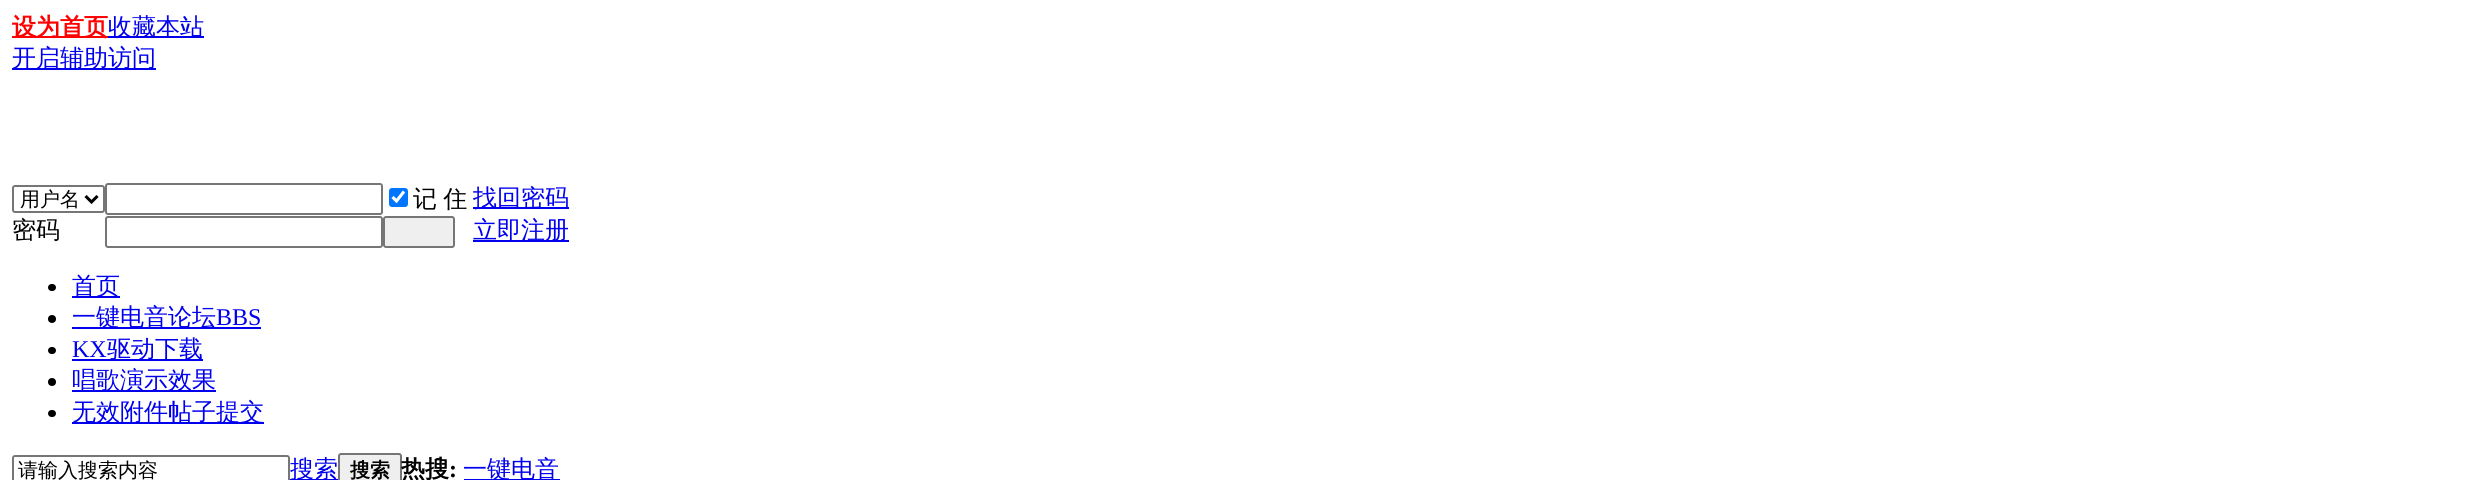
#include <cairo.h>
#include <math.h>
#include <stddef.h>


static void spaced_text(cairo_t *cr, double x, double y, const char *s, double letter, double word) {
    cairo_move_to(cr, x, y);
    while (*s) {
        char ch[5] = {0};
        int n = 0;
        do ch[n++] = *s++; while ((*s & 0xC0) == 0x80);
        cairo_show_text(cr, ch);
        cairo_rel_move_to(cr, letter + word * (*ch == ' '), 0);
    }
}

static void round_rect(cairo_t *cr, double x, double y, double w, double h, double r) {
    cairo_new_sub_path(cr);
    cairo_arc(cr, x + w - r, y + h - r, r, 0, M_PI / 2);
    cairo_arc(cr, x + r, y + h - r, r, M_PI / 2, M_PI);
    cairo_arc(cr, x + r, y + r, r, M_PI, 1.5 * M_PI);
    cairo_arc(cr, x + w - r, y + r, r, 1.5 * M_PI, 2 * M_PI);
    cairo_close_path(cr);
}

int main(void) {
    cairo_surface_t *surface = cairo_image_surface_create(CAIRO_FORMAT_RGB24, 2476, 480);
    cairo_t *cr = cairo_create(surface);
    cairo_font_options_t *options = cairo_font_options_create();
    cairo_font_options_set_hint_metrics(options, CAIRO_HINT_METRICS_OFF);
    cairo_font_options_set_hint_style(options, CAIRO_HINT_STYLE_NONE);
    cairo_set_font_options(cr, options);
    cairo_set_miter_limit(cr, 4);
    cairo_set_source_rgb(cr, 1, 1, 1);
    cairo_paint(cr);
    cairo_set_source_rgb(cr, 1, 0, 0);
    cairo_rectangle(cr, 12, 36, 96, 2);
    cairo_fill(cr);
    cairo_select_font_face(cr, "WenQuanYi Zen Hei", CAIRO_FONT_SLANT_NORMAL, CAIRO_FONT_WEIGHT_BOLD);
    cairo_set_font_size(cr, 24);
    cairo_move_to(cr, 12, 35);
    cairo_show_text(cr, "设为首页");
    cairo_set_source_rgb(cr, 0, 0, 0.933);
    cairo_rectangle(cr, 108, 36, 96, 2);
    cairo_fill(cr);
    cairo_select_font_face(cr, "WenQuanYi Zen Hei Medium", CAIRO_FONT_SLANT_NORMAL, CAIRO_FONT_WEIGHT_NORMAL);
    cairo_move_to(cr, 108, 35);
    cairo_show_text(cr, "收藏本站");
    cairo_rectangle(cr, 12, 68, 144, 2);
    cairo_fill(cr);
    cairo_move_to(cr, 12, 66);
    cairo_show_text(cr, "开启辅助访问");
    round_rect(cr, 13, 186, 91, 26, 2);
    cairo_set_source_rgb(cr, 0.463, 0.463, 0.463);
    cairo_stroke(cr);
    cairo_new_path(cr);
    cairo_move_to(cr, 85.5, 196);
    cairo_line_to(cr, 91.5, 202);
    cairo_line_to(cr, 97.5, 196);
    cairo_set_source_rgb(cr, 0, 0, 0);
    cairo_set_line_width(cr, 3);
    cairo_stroke(cr);
    cairo_set_font_size(cr, 20);
    cairo_move_to(cr, 20, 206);
    cairo_show_text(cr, "用户名");
    round_rect(cr, 106, 184, 276, 30, 2);
    cairo_set_source_rgb(cr, 0.463, 0.463, 0.463);
    cairo_set_line_width(cr, 2);
    cairo_stroke(cr);
    cairo_set_source_rgb(cr, 0, 0.459, 1);
    round_rect(cr, 389, 188, 19, 19, 3);
    cairo_fill(cr);
    cairo_new_path(cr);
    cairo_move_to(cr, 392.5, 197);
    cairo_line_to(cr, 396.5, 201);
    cairo_line_to(cr, 404, 191.5);
    cairo_set_source_rgb(cr, 1, 1, 1);
    cairo_set_line_width(cr, 3.1);
    cairo_stroke(cr);
    cairo_set_font_size(cr, 24);
    cairo_set_source_rgb(cr, 0, 0, 0);
    spaced_text(cr, 413, 207, "记 住", 0, -1);
    cairo_set_source_rgb(cr, 0, 0, 0.933);
    cairo_rectangle(cr, 473, 207, 96, 2);
    cairo_fill(cr);
    cairo_move_to(cr, 473, 206);
    cairo_show_text(cr, "找回密码");
    cairo_set_source_rgb(cr, 0, 0, 0);
    cairo_move_to(cr, 12, 238);
    cairo_show_text(cr, "密码");
    round_rect(cr, 106, 217, 276, 30, 2);
    cairo_set_source_rgb(cr, 0.463, 0.463, 0.463);
    cairo_set_line_width(cr, 2);
    cairo_stroke(cr);
    cairo_set_source_rgb(cr, 0.937, 0.937, 0.937);
    round_rect(cr, 384, 217, 70, 30, 2);
    cairo_fill_preserve(cr);
    cairo_set_source_rgb(cr, 0.463, 0.463, 0.463);
    cairo_stroke(cr);
    cairo_set_source_rgb(cr, 0, 0, 0.933);
    cairo_rectangle(cr, 473, 240, 96, 2);
    cairo_fill(cr);
    cairo_move_to(cr, 473, 238);
    cairo_show_text(cr, "立即注册");
    cairo_set_source_rgb(cr, 0, 0, 0);
    round_rect(cr, 48, 284, 8, 7, 3.5);
    cairo_fill(cr);
    cairo_set_source_rgb(cr, 0, 0, 0.933);
    cairo_rectangle(cr, 72, 296, 48, 2);
    cairo_fill(cr);
    cairo_move_to(cr, 72, 294);
    cairo_show_text(cr, "首页");
    cairo_set_source_rgb(cr, 0, 0, 0);
    cairo_new_path(cr);
    cairo_arc(cr, 52, 319, 4, 0, 2 * M_PI);
    cairo_fill(cr);
    cairo_set_source_rgb(cr, 0, 0, 0.933);
    cairo_rectangle(cr, 72, 327, 189, 2);
    cairo_fill(cr);
    cairo_move_to(cr, 72, 325);
    cairo_show_text(cr, "一键电音论坛");
    cairo_select_font_face(cr, "Liberation Serif", CAIRO_FONT_SLANT_NORMAL, CAIRO_FONT_WEIGHT_NORMAL);
    cairo_move_to(cr, 216, 325);
    cairo_show_text(cr, "BBS");
    cairo_set_source_rgb(cr, 0, 0, 0);
    round_rect(cr, 48, 347, 8, 7, 3.5);
    cairo_fill(cr);
    cairo_set_source_rgb(cr, 0, 0, 0.933);
    cairo_move_to(cr, 72, 357);
    cairo_show_text(cr, "KX");
    cairo_rectangle(cr, 72, 359, 131, 2);
    cairo_fill(cr);
    cairo_select_font_face(cr, "WenQuanYi Zen Hei Medium", CAIRO_FONT_SLANT_NORMAL, CAIRO_FONT_WEIGHT_NORMAL);
    cairo_move_to(cr, 107, 357);
    cairo_show_text(cr, "驱动下载");
    cairo_set_source_rgb(cr, 0, 0, 0);
    cairo_new_path(cr);
    cairo_arc(cr, 52, 382, 4, 0, 2 * M_PI);
    cairo_fill(cr);
    cairo_set_source_rgb(cr, 0, 0, 0.933);
    cairo_rectangle(cr, 72, 390, 144, 2);
    cairo_fill(cr);
    cairo_move_to(cr, 72, 388);
    cairo_show_text(cr, "唱歌演示效果");
    cairo_set_source_rgb(cr, 0, 0, 0);
    round_rect(cr, 48, 410, 8, 7, 3.5);
    cairo_fill(cr);
    cairo_set_source_rgb(cr, 0, 0, 0.933);
    cairo_rectangle(cr, 72, 422, 192, 2);
    cairo_fill(cr);
    cairo_move_to(cr, 72, 420);
    cairo_show_text(cr, "无效附件帖子提交");
    round_rect(cr, 13, 456, 276, 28, 2);
    cairo_set_source_rgb(cr, 0.463, 0.463, 0.463);
    cairo_stroke(cr);
    cairo_set_font_size(cr, 20);
    cairo_set_source_rgb(cr, 0, 0, 0);
    cairo_move_to(cr, 18, 477);
    cairo_show_text(cr, "请输入搜索内容");
    cairo_set_source_rgb(cr, 0, 0, 0.933);
    cairo_rectangle(cr, 290, 479, 48, 1);
    cairo_fill(cr);
    cairo_set_font_size(cr, 24);
    cairo_move_to(cr, 290, 477);
    cairo_show_text(cr, "搜索");
    cairo_set_source_rgb(cr, 0.937, 0.937, 0.937);
    round_rect(cr, 339, 454, 62, 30, 2);
    cairo_fill_preserve(cr);
    cairo_set_source_rgb(cr, 0.463, 0.463, 0.463);
    cairo_stroke(cr);
    cairo_select_font_face(cr, "WenQuanYi Zen Hei", CAIRO_FONT_SLANT_NORMAL, CAIRO_FONT_WEIGHT_BOLD);
    cairo_set_font_size(cr, 20);
    cairo_set_source_rgb(cr, 0, 0, 0);
    cairo_move_to(cr, 350, 477);
    cairo_show_text(cr, "搜索");
    cairo_set_font_size(cr, 24);
    cairo_move_to(cr, 401, 477);
    cairo_show_text(cr, "热搜");
    cairo_select_font_face(cr, "Liberation Serif", CAIRO_FONT_SLANT_NORMAL, CAIRO_FONT_WEIGHT_BOLD);
    cairo_move_to(cr, 449, 477);
    cairo_show_text(cr, ":");
    cairo_set_source_rgb(cr, 0, 0, 0.933);
    cairo_rectangle(cr, 464, 479, 96, 1);
    cairo_fill(cr);
    cairo_select_font_face(cr, "WenQuanYi Zen Hei Medium", CAIRO_FONT_SLANT_NORMAL, CAIRO_FONT_WEIGHT_NORMAL);
    cairo_move_to(cr, 463, 477);
    cairo_show_text(cr, "一键电音");
    cairo_surface_write_to_png(surface, "page.png");
    cairo_font_options_destroy(options);
    cairo_destroy(cr);
    cairo_surface_destroy(surface);
    return 0;
}
